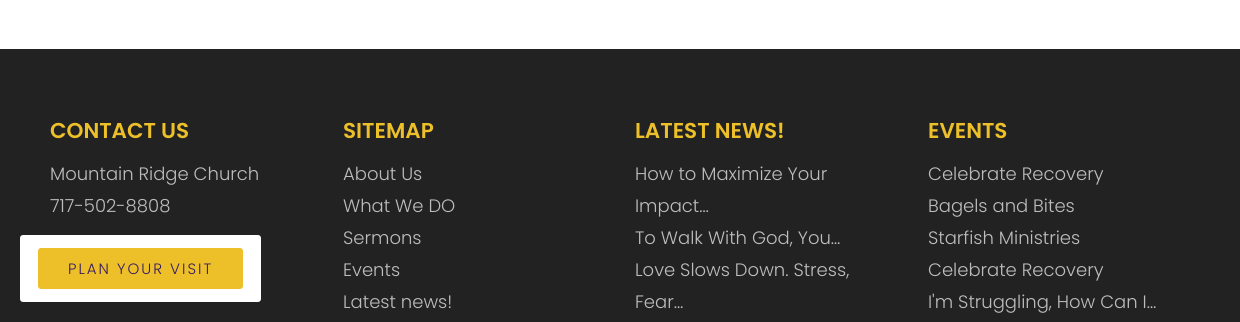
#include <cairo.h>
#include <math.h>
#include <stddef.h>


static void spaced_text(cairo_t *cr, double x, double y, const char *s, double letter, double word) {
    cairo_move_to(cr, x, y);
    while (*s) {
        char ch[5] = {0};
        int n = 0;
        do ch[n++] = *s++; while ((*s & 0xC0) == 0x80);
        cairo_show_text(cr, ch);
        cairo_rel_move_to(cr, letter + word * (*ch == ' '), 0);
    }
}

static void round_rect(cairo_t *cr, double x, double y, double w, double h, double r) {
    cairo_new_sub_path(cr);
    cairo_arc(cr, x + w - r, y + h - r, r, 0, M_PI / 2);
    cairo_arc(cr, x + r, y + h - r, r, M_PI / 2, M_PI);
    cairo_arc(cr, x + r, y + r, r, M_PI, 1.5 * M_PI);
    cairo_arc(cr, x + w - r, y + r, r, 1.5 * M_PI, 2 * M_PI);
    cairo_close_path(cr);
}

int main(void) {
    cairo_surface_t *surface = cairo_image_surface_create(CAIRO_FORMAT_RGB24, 1240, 322);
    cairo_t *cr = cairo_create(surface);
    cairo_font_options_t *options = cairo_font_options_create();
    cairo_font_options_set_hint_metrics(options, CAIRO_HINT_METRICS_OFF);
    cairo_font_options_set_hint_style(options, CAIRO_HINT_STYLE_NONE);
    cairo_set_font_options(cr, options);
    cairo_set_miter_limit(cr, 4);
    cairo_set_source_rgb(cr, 1, 1, 1);
    cairo_paint(cr);
    cairo_set_source_rgb(cr, 0.133, 0.133, 0.133);
    cairo_rectangle(cr, 0, 49, 1240, 273);
    cairo_fill(cr);
    cairo_select_font_face(cr, "Poppins SemiBold", CAIRO_FONT_SLANT_NORMAL, CAIRO_FONT_WEIGHT_NORMAL);
    cairo_set_font_size(cr, 21.5);
    cairo_set_source_rgb(cr, 0.929, 0.753, 0.165);
    cairo_move_to(cr, 50, 138);
    cairo_show_text(cr, "CONTACT US");
    cairo_select_font_face(cr, "Poppins Light", CAIRO_FONT_SLANT_NORMAL, CAIRO_FONT_WEIGHT_NORMAL);
    cairo_set_font_size(cr, 18);
    cairo_set_source_rgb(cr, 0.741, 0.741, 0.741);
    cairo_move_to(cr, 50, 180);
    cairo_show_text(cr, "Mountain Ridge Church");
    cairo_move_to(cr, 50, 212);
    cairo_show_text(cr, "717-502-8808");
    cairo_select_font_face(cr, "Poppins SemiBold", CAIRO_FONT_SLANT_NORMAL, CAIRO_FONT_WEIGHT_NORMAL);
    cairo_set_font_size(cr, 21.5);
    cairo_set_source_rgb(cr, 0.929, 0.753, 0.165);
    cairo_move_to(cr, 343, 138);
    cairo_show_text(cr, "SITEMAP");
    cairo_select_font_face(cr, "Poppins Light", CAIRO_FONT_SLANT_NORMAL, CAIRO_FONT_WEIGHT_NORMAL);
    cairo_set_font_size(cr, 18);
    cairo_set_source_rgb(cr, 0.741, 0.741, 0.741);
    cairo_move_to(cr, 343, 180);
    cairo_show_text(cr, "About Us");
    cairo_move_to(cr, 343, 212);
    cairo_show_text(cr, "What We DO");
    cairo_move_to(cr, 343, 244);
    cairo_show_text(cr, "Sermons");
    cairo_move_to(cr, 343, 276);
    cairo_show_text(cr, "Events");
    cairo_move_to(cr, 343, 308);
    cairo_show_text(cr, "Latest news!");
    cairo_select_font_face(cr, "Poppins SemiBold", CAIRO_FONT_SLANT_NORMAL, CAIRO_FONT_WEIGHT_NORMAL);
    cairo_set_font_size(cr, 21.5);
    cairo_set_source_rgb(cr, 0.929, 0.753, 0.165);
    cairo_move_to(cr, 635, 138);
    cairo_show_text(cr, "LATEST NEWS!");
    cairo_select_font_face(cr, "Poppins Light", CAIRO_FONT_SLANT_NORMAL, CAIRO_FONT_WEIGHT_NORMAL);
    cairo_set_font_size(cr, 18);
    cairo_set_source_rgb(cr, 0.741, 0.741, 0.741);
    cairo_move_to(cr, 635, 180);
    cairo_show_text(cr, "How to Maximize Your");
    cairo_move_to(cr, 635, 212);
    cairo_show_text(cr, "Impact…");
    cairo_move_to(cr, 635, 244);
    cairo_show_text(cr, "To Walk With God, You…");
    cairo_move_to(cr, 635, 276);
    cairo_show_text(cr, "Love Slows Down. Stress,");
    cairo_move_to(cr, 635, 308);
    cairo_show_text(cr, "Fear…");
    cairo_select_font_face(cr, "Poppins SemiBold", CAIRO_FONT_SLANT_NORMAL, CAIRO_FONT_WEIGHT_NORMAL);
    cairo_set_font_size(cr, 21.5);
    cairo_set_source_rgb(cr, 0.929, 0.753, 0.165);
    cairo_move_to(cr, 928, 138);
    cairo_show_text(cr, "EVENTS");
    cairo_select_font_face(cr, "Poppins Light", CAIRO_FONT_SLANT_NORMAL, CAIRO_FONT_WEIGHT_NORMAL);
    cairo_set_font_size(cr, 18);
    cairo_set_source_rgb(cr, 0.741, 0.741, 0.741);
    cairo_move_to(cr, 928, 180);
    cairo_show_text(cr, "Celebrate Recovery");
    cairo_move_to(cr, 928, 212);
    cairo_show_text(cr, "Bagels and Bites");
    cairo_move_to(cr, 928, 244);
    cairo_show_text(cr, "Starfish Ministries");
    cairo_move_to(cr, 928, 276);
    cairo_show_text(cr, "Celebrate Recovery");
    cairo_move_to(cr, 928, 308);
    cairo_show_text(cr, "I'm Struggling, How Can I…");
    cairo_set_source_rgb(cr, 1, 1, 1);
    round_rect(cr, 20, 235, 241, 67, 3);
    cairo_fill(cr);
    cairo_set_source_rgb(cr, 0.929, 0.753, 0.165);
    round_rect(cr, 38, 248, 205, 41, 3);
    cairo_fill(cr);
    cairo_set_font_size(cr, 15);
    cairo_set_source_rgb(cr, 0.2, 0.098, 0.384);
    spaced_text(cr, 68, 274, "PLAN YOUR VISIT", 2, 0);
    cairo_surface_write_to_png(surface, "page.png");
    cairo_font_options_destroy(options);
    cairo_destroy(cr);
    cairo_surface_destroy(surface);
    return 0;
}
